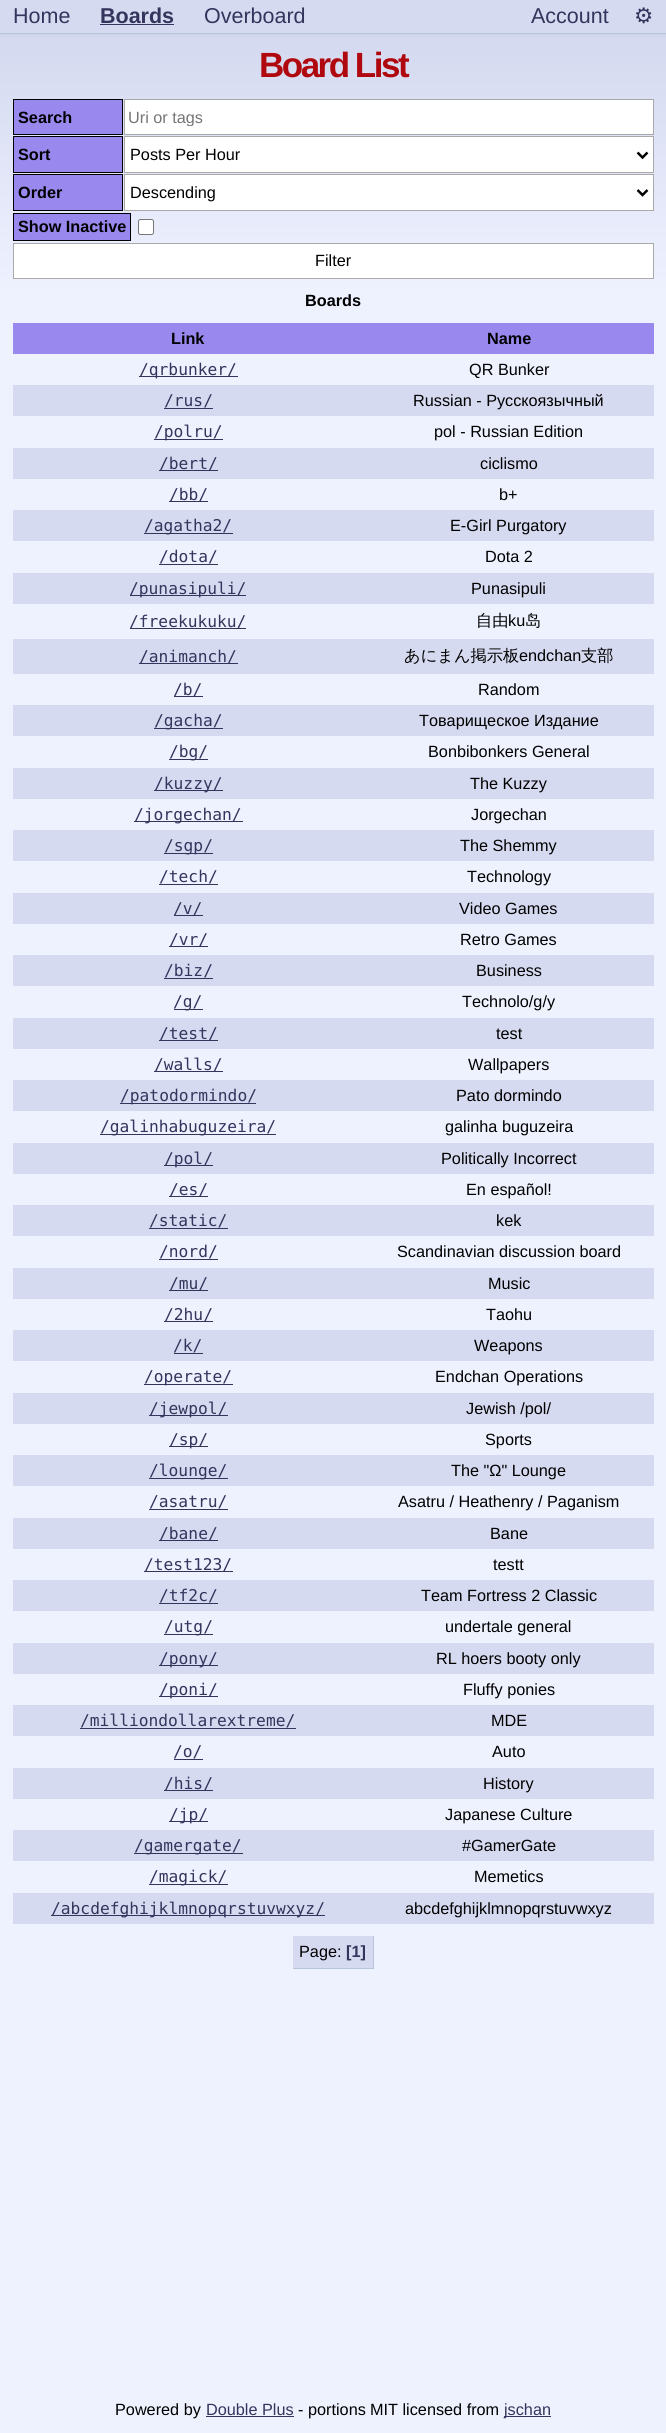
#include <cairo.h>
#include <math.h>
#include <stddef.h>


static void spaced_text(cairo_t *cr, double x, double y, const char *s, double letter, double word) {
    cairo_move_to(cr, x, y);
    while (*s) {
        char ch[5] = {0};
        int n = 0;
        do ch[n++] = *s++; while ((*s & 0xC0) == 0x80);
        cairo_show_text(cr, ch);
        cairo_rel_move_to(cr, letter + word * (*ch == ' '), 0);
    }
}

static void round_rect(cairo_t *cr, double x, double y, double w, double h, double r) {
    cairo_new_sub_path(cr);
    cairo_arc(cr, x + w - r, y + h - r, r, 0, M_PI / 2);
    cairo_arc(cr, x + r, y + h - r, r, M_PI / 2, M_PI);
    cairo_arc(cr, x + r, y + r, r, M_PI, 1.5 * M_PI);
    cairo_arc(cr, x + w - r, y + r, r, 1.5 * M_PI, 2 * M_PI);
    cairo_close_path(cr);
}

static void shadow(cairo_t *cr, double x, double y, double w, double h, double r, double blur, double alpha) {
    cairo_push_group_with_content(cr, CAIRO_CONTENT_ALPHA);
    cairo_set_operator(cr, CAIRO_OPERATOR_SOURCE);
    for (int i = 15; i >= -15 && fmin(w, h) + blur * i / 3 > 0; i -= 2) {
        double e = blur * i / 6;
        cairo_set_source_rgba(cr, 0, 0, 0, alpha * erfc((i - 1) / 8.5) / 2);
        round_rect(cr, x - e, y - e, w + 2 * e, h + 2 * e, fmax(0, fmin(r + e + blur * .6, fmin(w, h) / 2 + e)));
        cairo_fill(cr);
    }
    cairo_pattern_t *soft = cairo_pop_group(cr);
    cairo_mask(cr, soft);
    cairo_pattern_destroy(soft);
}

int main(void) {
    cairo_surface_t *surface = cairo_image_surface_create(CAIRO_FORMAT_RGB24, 666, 2433);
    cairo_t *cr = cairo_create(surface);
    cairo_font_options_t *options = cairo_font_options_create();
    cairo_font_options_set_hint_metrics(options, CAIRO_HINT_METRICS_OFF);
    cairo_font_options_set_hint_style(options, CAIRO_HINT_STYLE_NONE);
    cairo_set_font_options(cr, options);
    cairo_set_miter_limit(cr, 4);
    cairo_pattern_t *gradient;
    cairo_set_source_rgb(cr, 1, 1, 1);
    cairo_paint(cr);
    gradient = cairo_pattern_create_linear(333, 0, 333, 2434);
    cairo_pattern_add_color_stop_rgba(gradient, 0.02, 0.839, 0.855, 0.941, 1);
    cairo_pattern_add_color_stop_rgba(gradient, 0.12, 0.933, 0.949, 1, 1);
    cairo_set_source(cr, gradient);
    cairo_pattern_destroy(gradient);
    cairo_rectangle(cr, 0, 34, 666, 2399);
    cairo_fill(cr);
    cairo_set_source_rgb(cr, 0, 0, 0);
    shadow(cr, -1, -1, 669, 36, 0, 2, 0.06);
    cairo_set_source_rgb(cr, 0.839, 0.855, 0.941);
    cairo_rectangle(cr, 0, 0, 666, 33);
    cairo_fill(cr);
    cairo_set_source_rgb(cr, 0.718, 0.773, 0.851);
    cairo_rectangle(cr, 0, 33, 666, 1);
    cairo_fill(cr);
    cairo_select_font_face(cr, "Liberation Sans", CAIRO_FONT_SLANT_NORMAL, CAIRO_FONT_WEIGHT_NORMAL);
    cairo_set_font_size(cr, 21.5);
    cairo_set_source_rgb(cr, 0.204, 0.204, 0.361);
    cairo_move_to(cr, 13, 23);
    cairo_show_text(cr, "Home");
    cairo_select_font_face(cr, "Liberation Sans", CAIRO_FONT_SLANT_NORMAL, CAIRO_FONT_WEIGHT_BOLD);
    cairo_move_to(cr, 100, 23);
    cairo_show_text(cr, "Boards");
    cairo_rectangle(cr, 100, 24, 74, 1);
    cairo_fill(cr);
    cairo_select_font_face(cr, "Liberation Sans", CAIRO_FONT_SLANT_NORMAL, CAIRO_FONT_WEIGHT_NORMAL);
    cairo_move_to(cr, 204, 23);
    cairo_show_text(cr, "Overboard");
    cairo_move_to(cr, 531, 23);
    cairo_show_text(cr, "Account");
    cairo_select_font_face(cr, "DejaVu Sans", CAIRO_FONT_SLANT_NORMAL, CAIRO_FONT_WEIGHT_NORMAL);
    cairo_move_to(cr, 634, 23);
    cairo_show_text(cr, "⚙");
    cairo_select_font_face(cr, "Liberation Sans", CAIRO_FONT_SLANT_NORMAL, CAIRO_FONT_WEIGHT_BOLD);
    cairo_set_font_size(cr, 35);
    cairo_set_source_rgb(cr, 0.686, 0.039, 0.059);
    spaced_text(cr, 259, 77, "Board List", -2.5, 0);
    cairo_set_source_rgb(cr, 0.6, 0.533, 0.933);
    cairo_rectangle(cr, 13.5, 99.5, 109, 35);
    cairo_fill_preserve(cr);
    cairo_set_source_rgb(cr, 0, 0, 0);
    cairo_set_line_width(cr, 1);
    cairo_stroke(cr);
    cairo_set_font_size(cr, 16.25);
    cairo_move_to(cr, 18, 123);
    cairo_show_text(cr, "Search");
    cairo_set_source_rgb(cr, 1, 1, 1);
    cairo_rectangle(cr, 124.5, 99.5, 529, 35);
    cairo_fill_preserve(cr);
    cairo_set_source_rgb(cr, 0.663, 0.663, 0.663);
    cairo_stroke(cr);
    cairo_save(cr);
    cairo_rectangle(cr, 128, 108, 522, 18);
    cairo_clip(cr);
    cairo_select_font_face(cr, "Liberation Sans", CAIRO_FONT_SLANT_NORMAL, CAIRO_FONT_WEIGHT_NORMAL);
    cairo_set_source_rgb(cr, 0.459, 0.459, 0.459);
    cairo_move_to(cr, 128, 123);
    cairo_show_text(cr, "Uri or tags");
    cairo_restore(cr);
    cairo_set_source_rgb(cr, 0.6, 0.533, 0.933);
    cairo_rectangle(cr, 13.5, 136.5, 109, 36);
    cairo_fill_preserve(cr);
    cairo_set_source_rgb(cr, 0, 0, 0);
    cairo_stroke(cr);
    cairo_move_to(cr, 18, 160);
    cairo_show_text(cr, "Sort");
    cairo_set_source_rgb(cr, 1, 1, 1);
    cairo_rectangle(cr, 124.5, 136.5, 529, 36);
    cairo_fill_preserve(cr);
    cairo_set_source_rgb(cr, 0.663, 0.663, 0.663);
    cairo_stroke(cr);
    cairo_new_path(cr);
    cairo_move_to(cr, 637.5, 152.5);
    cairo_line_to(cr, 642.5, 157.5);
    cairo_line_to(cr, 647.5, 152.5);
    cairo_set_source_rgb(cr, 0, 0, 0);
    cairo_set_line_width(cr, 2.5);
    cairo_stroke(cr);
    cairo_select_font_face(cr, "Liberation Sans", CAIRO_FONT_SLANT_NORMAL, CAIRO_FONT_WEIGHT_NORMAL);
    cairo_move_to(cr, 130, 160);
    cairo_show_text(cr, "Posts Per Hour");
    cairo_set_source_rgb(cr, 0.6, 0.533, 0.933);
    cairo_rectangle(cr, 13.5, 174.5, 109, 36);
    cairo_fill_preserve(cr);
    cairo_set_source_rgb(cr, 0, 0, 0);
    cairo_set_line_width(cr, 1);
    cairo_stroke(cr);
    cairo_select_font_face(cr, "Liberation Sans", CAIRO_FONT_SLANT_NORMAL, CAIRO_FONT_WEIGHT_BOLD);
    cairo_move_to(cr, 18, 198);
    cairo_show_text(cr, "Order");
    cairo_set_source_rgb(cr, 1, 1, 1);
    cairo_rectangle(cr, 124.5, 174.5, 529, 36);
    cairo_fill_preserve(cr);
    cairo_set_source_rgb(cr, 0.663, 0.663, 0.663);
    cairo_stroke(cr);
    cairo_new_path(cr);
    cairo_move_to(cr, 637.5, 190);
    cairo_line_to(cr, 642.5, 195);
    cairo_line_to(cr, 647.5, 190);
    cairo_set_source_rgb(cr, 0, 0, 0);
    cairo_set_line_width(cr, 2.5);
    cairo_stroke(cr);
    cairo_select_font_face(cr, "Liberation Sans", CAIRO_FONT_SLANT_NORMAL, CAIRO_FONT_WEIGHT_NORMAL);
    cairo_move_to(cr, 130, 198);
    cairo_show_text(cr, "Descending");
    cairo_set_source_rgb(cr, 0.6, 0.533, 0.933);
    cairo_rectangle(cr, 13.5, 213.5, 117, 27);
    cairo_fill_preserve(cr);
    cairo_set_source_rgb(cr, 0, 0, 0);
    cairo_set_line_width(cr, 1);
    cairo_stroke(cr);
    cairo_select_font_face(cr, "Liberation Sans", CAIRO_FONT_SLANT_NORMAL, CAIRO_FONT_WEIGHT_BOLD);
    cairo_move_to(cr, 18, 232);
    cairo_show_text(cr, "Show Inactive");
    cairo_set_source_rgb(cr, 1, 1, 1);
    round_rect(cr, 138.5, 219.5, 15, 15, 2);
    cairo_fill_preserve(cr);
    cairo_set_source_rgb(cr, 0.463, 0.463, 0.463);
    cairo_stroke(cr);
    cairo_set_source_rgb(cr, 1, 1, 1);
    cairo_rectangle(cr, 13.5, 243.5, 640, 35);
    cairo_fill_preserve(cr);
    cairo_set_source_rgb(cr, 0.663, 0.663, 0.663);
    cairo_stroke(cr);
    cairo_select_font_face(cr, "Liberation Sans", CAIRO_FONT_SLANT_NORMAL, CAIRO_FONT_WEIGHT_NORMAL);
    cairo_set_source_rgb(cr, 0, 0, 0);
    cairo_move_to(cr, 315, 266);
    cairo_show_text(cr, "Filter");
    cairo_select_font_face(cr, "Liberation Sans", CAIRO_FONT_SLANT_NORMAL, CAIRO_FONT_WEIGHT_BOLD);
    cairo_move_to(cr, 305, 306);
    cairo_show_text(cr, "Boards");
    cairo_set_source_rgb(cr, 0.6, 0.533, 0.933);
    cairo_rectangle(cr, 13, 323, 641, 31);
    cairo_fill(cr);
    cairo_set_source_rgb(cr, 0, 0, 0);
    cairo_move_to(cr, 171, 344);
    cairo_show_text(cr, "Link");
    cairo_move_to(cr, 487, 344);
    cairo_show_text(cr, "Name");
    cairo_set_source_rgb(cr, 0.204, 0.204, 0.361);
    cairo_rectangle(cr, 139, 376, 99, 1);
    cairo_fill(cr);
    cairo_select_font_face(cr, "DejaVu Sans Mono", CAIRO_FONT_SLANT_NORMAL, CAIRO_FONT_WEIGHT_NORMAL);
    cairo_move_to(cr, 139, 375);
    cairo_show_text(cr, "/qrbunker/");
    cairo_select_font_face(cr, "Liberation Sans", CAIRO_FONT_SLANT_NORMAL, CAIRO_FONT_WEIGHT_NORMAL);
    cairo_set_source_rgb(cr, 0, 0, 0);
    cairo_move_to(cr, 469, 375);
    cairo_show_text(cr, "QR Bunker");
    cairo_set_source_rgb(cr, 0.839, 0.855, 0.941);
    cairo_rectangle(cr, 13, 385, 641, 31);
    cairo_fill(cr);
    cairo_select_font_face(cr, "DejaVu Sans Mono", CAIRO_FONT_SLANT_NORMAL, CAIRO_FONT_WEIGHT_NORMAL);
    cairo_set_source_rgb(cr, 0.204, 0.204, 0.361);
    cairo_move_to(cr, 164, 406);
    cairo_show_text(cr, "/rus/");
    cairo_rectangle(cr, 164, 408, 49, 1);
    cairo_fill(cr);
    cairo_select_font_face(cr, "Liberation Sans", CAIRO_FONT_SLANT_NORMAL, CAIRO_FONT_WEIGHT_NORMAL);
    cairo_set_source_rgb(cr, 0, 0, 0);
    cairo_move_to(cr, 413, 406);
    cairo_show_text(cr, "Russian - Русскоязычный");
    cairo_set_source_rgb(cr, 0.204, 0.204, 0.361);
    cairo_rectangle(cr, 154, 439, 69, 1);
    cairo_fill(cr);
    cairo_select_font_face(cr, "DejaVu Sans Mono", CAIRO_FONT_SLANT_NORMAL, CAIRO_FONT_WEIGHT_NORMAL);
    cairo_move_to(cr, 154, 437);
    cairo_show_text(cr, "/polru/");
    cairo_select_font_face(cr, "Liberation Sans", CAIRO_FONT_SLANT_NORMAL, CAIRO_FONT_WEIGHT_NORMAL);
    cairo_set_source_rgb(cr, 0, 0, 0);
    cairo_move_to(cr, 434, 437);
    cairo_show_text(cr, "pol - Russian Edition");
    cairo_set_source_rgb(cr, 0.839, 0.855, 0.941);
    cairo_rectangle(cr, 13, 448, 641, 31);
    cairo_fill(cr);
    cairo_set_source_rgb(cr, 0.204, 0.204, 0.361);
    cairo_rectangle(cr, 159, 470, 59, 1);
    cairo_fill(cr);
    cairo_select_font_face(cr, "DejaVu Sans Mono", CAIRO_FONT_SLANT_NORMAL, CAIRO_FONT_WEIGHT_NORMAL);
    cairo_move_to(cr, 159, 469);
    cairo_show_text(cr, "/bert/");
    cairo_select_font_face(cr, "Liberation Sans", CAIRO_FONT_SLANT_NORMAL, CAIRO_FONT_WEIGHT_NORMAL);
    cairo_set_source_rgb(cr, 0, 0, 0);
    cairo_move_to(cr, 480, 469);
    cairo_show_text(cr, "ciclismo");
    cairo_set_source_rgb(cr, 0.204, 0.204, 0.361);
    cairo_rectangle(cr, 169, 501, 39, 1);
    cairo_fill(cr);
    cairo_select_font_face(cr, "DejaVu Sans Mono", CAIRO_FONT_SLANT_NORMAL, CAIRO_FONT_WEIGHT_NORMAL);
    cairo_move_to(cr, 169, 500);
    cairo_show_text(cr, "/bb/");
    cairo_select_font_face(cr, "Liberation Sans", CAIRO_FONT_SLANT_NORMAL, CAIRO_FONT_WEIGHT_NORMAL);
    cairo_set_source_rgb(cr, 0, 0, 0);
    cairo_move_to(cr, 499, 500);
    cairo_show_text(cr, "b+");
    cairo_set_source_rgb(cr, 0.839, 0.855, 0.941);
    cairo_rectangle(cr, 13, 510, 641, 31);
    cairo_fill(cr);
    cairo_set_source_rgb(cr, 0.204, 0.204, 0.361);
    cairo_rectangle(cr, 144, 533, 89, 1);
    cairo_fill(cr);
    cairo_select_font_face(cr, "DejaVu Sans Mono", CAIRO_FONT_SLANT_NORMAL, CAIRO_FONT_WEIGHT_NORMAL);
    cairo_move_to(cr, 144, 531);
    cairo_show_text(cr, "/agatha2/");
    cairo_select_font_face(cr, "Liberation Sans", CAIRO_FONT_SLANT_NORMAL, CAIRO_FONT_WEIGHT_NORMAL);
    cairo_set_source_rgb(cr, 0, 0, 0);
    cairo_move_to(cr, 450, 531);
    cairo_show_text(cr, "E-Girl Purgatory");
    cairo_select_font_face(cr, "DejaVu Sans Mono", CAIRO_FONT_SLANT_NORMAL, CAIRO_FONT_WEIGHT_NORMAL);
    cairo_set_source_rgb(cr, 0.204, 0.204, 0.361);
    cairo_move_to(cr, 159, 562);
    cairo_show_text(cr, "/dota/");
    cairo_rectangle(cr, 159, 564, 59, 1);
    cairo_fill(cr);
    cairo_select_font_face(cr, "Liberation Sans", CAIRO_FONT_SLANT_NORMAL, CAIRO_FONT_WEIGHT_NORMAL);
    cairo_set_source_rgb(cr, 0, 0, 0);
    cairo_move_to(cr, 485, 562);
    cairo_show_text(cr, "Dota 2");
    cairo_set_source_rgb(cr, 0.839, 0.855, 0.941);
    cairo_rectangle(cr, 13, 573, 641, 31);
    cairo_fill(cr);
    cairo_set_source_rgb(cr, 0.204, 0.204, 0.361);
    cairo_rectangle(cr, 130, 595, 116, 1);
    cairo_fill(cr);
    cairo_select_font_face(cr, "DejaVu Sans Mono", CAIRO_FONT_SLANT_NORMAL, CAIRO_FONT_WEIGHT_NORMAL);
    cairo_move_to(cr, 129, 594);
    cairo_show_text(cr, "/punasipuli/");
    cairo_select_font_face(cr, "Liberation Sans", CAIRO_FONT_SLANT_NORMAL, CAIRO_FONT_WEIGHT_NORMAL);
    cairo_set_source_rgb(cr, 0, 0, 0);
    cairo_move_to(cr, 471, 594);
    cairo_show_text(cr, "Punasipuli");
    cairo_set_source_rgb(cr, 0.204, 0.204, 0.361);
    cairo_rectangle(cr, 130, 628, 116, 1);
    cairo_fill(cr);
    cairo_select_font_face(cr, "DejaVu Sans Mono", CAIRO_FONT_SLANT_NORMAL, CAIRO_FONT_WEIGHT_NORMAL);
    cairo_move_to(cr, 129, 627);
    cairo_show_text(cr, "/freekukuku/");
    cairo_select_font_face(cr, "WenQuanYi Zen Hei Medium", CAIRO_FONT_SLANT_NORMAL, CAIRO_FONT_WEIGHT_NORMAL);
    cairo_set_source_rgb(cr, 0, 0, 0);
    cairo_move_to(cr, 476, 626);
    cairo_show_text(cr, "自由");
    cairo_select_font_face(cr, "Liberation Sans", CAIRO_FONT_SLANT_NORMAL, CAIRO_FONT_WEIGHT_NORMAL);
    cairo_move_to(cr, 508, 626);
    cairo_show_text(cr, "ku");
    cairo_select_font_face(cr, "WenQuanYi Zen Hei Medium", CAIRO_FONT_SLANT_NORMAL, CAIRO_FONT_WEIGHT_NORMAL);
    cairo_move_to(cr, 525, 626);
    cairo_show_text(cr, "岛");
    cairo_set_source_rgb(cr, 0.839, 0.855, 0.941);
    cairo_rectangle(cr, 13, 639, 641, 35);
    cairo_fill(cr);
    cairo_set_source_rgb(cr, 0.204, 0.204, 0.361);
    cairo_rectangle(cr, 139, 663, 99, 1);
    cairo_fill(cr);
    cairo_select_font_face(cr, "DejaVu Sans Mono", CAIRO_FONT_SLANT_NORMAL, CAIRO_FONT_WEIGHT_NORMAL);
    cairo_move_to(cr, 139, 662);
    cairo_show_text(cr, "/animanch/");
    cairo_select_font_face(cr, "WenQuanYi Zen Hei Medium", CAIRO_FONT_SLANT_NORMAL, CAIRO_FONT_WEIGHT_NORMAL);
    cairo_set_source_rgb(cr, 0, 0, 0);
    cairo_move_to(cr, 404, 661);
    cairo_show_text(cr, "あにまん掲示板");
    cairo_select_font_face(cr, "Liberation Sans", CAIRO_FONT_SLANT_NORMAL, CAIRO_FONT_WEIGHT_NORMAL);
    cairo_move_to(cr, 519, 661);
    cairo_show_text(cr, "endchan");
    cairo_select_font_face(cr, "WenQuanYi Zen Hei Medium", CAIRO_FONT_SLANT_NORMAL, CAIRO_FONT_WEIGHT_NORMAL);
    cairo_move_to(cr, 581, 661);
    cairo_show_text(cr, "支部");
    cairo_set_source_rgb(cr, 0.204, 0.204, 0.361);
    cairo_rectangle(cr, 174, 696, 29, 1);
    cairo_fill(cr);
    cairo_select_font_face(cr, "DejaVu Sans Mono", CAIRO_FONT_SLANT_NORMAL, CAIRO_FONT_WEIGHT_NORMAL);
    cairo_move_to(cr, 173, 695);
    cairo_show_text(cr, "/b/");
    cairo_select_font_face(cr, "Liberation Sans", CAIRO_FONT_SLANT_NORMAL, CAIRO_FONT_WEIGHT_NORMAL);
    cairo_set_source_rgb(cr, 0, 0, 0);
    cairo_move_to(cr, 478, 695);
    cairo_show_text(cr, "Random");
    cairo_set_source_rgb(cr, 0.839, 0.855, 0.941);
    cairo_rectangle(cr, 13, 705, 641, 31);
    cairo_fill(cr);
    cairo_set_source_rgb(cr, 0.204, 0.204, 0.361);
    cairo_rectangle(cr, 154, 728, 69, 1);
    cairo_fill(cr);
    cairo_select_font_face(cr, "DejaVu Sans Mono", CAIRO_FONT_SLANT_NORMAL, CAIRO_FONT_WEIGHT_NORMAL);
    cairo_move_to(cr, 154, 726);
    cairo_show_text(cr, "/gacha/");
    cairo_select_font_face(cr, "Liberation Sans", CAIRO_FONT_SLANT_NORMAL, CAIRO_FONT_WEIGHT_NORMAL);
    cairo_set_source_rgb(cr, 0, 0, 0);
    cairo_move_to(cr, 419, 726);
    cairo_show_text(cr, "Товарищеское Издание");
    cairo_set_source_rgb(cr, 0.204, 0.204, 0.361);
    cairo_rectangle(cr, 169, 759, 39, 1);
    cairo_fill(cr);
    cairo_select_font_face(cr, "DejaVu Sans Mono", CAIRO_FONT_SLANT_NORMAL, CAIRO_FONT_WEIGHT_NORMAL);
    cairo_move_to(cr, 169, 757);
    cairo_show_text(cr, "/bg/");
    cairo_select_font_face(cr, "Liberation Sans", CAIRO_FONT_SLANT_NORMAL, CAIRO_FONT_WEIGHT_NORMAL);
    cairo_set_source_rgb(cr, 0, 0, 0);
    cairo_move_to(cr, 428, 757);
    cairo_show_text(cr, "Bonbibonkers General");
    cairo_set_source_rgb(cr, 0.839, 0.855, 0.941);
    cairo_rectangle(cr, 13, 768, 641, 31);
    cairo_fill(cr);
    cairo_set_source_rgb(cr, 0.204, 0.204, 0.361);
    cairo_rectangle(cr, 154, 790, 69, 1);
    cairo_fill(cr);
    cairo_select_font_face(cr, "DejaVu Sans Mono", CAIRO_FONT_SLANT_NORMAL, CAIRO_FONT_WEIGHT_NORMAL);
    cairo_move_to(cr, 154, 789);
    cairo_show_text(cr, "/kuzzy/");
    cairo_select_font_face(cr, "Liberation Sans", CAIRO_FONT_SLANT_NORMAL, CAIRO_FONT_WEIGHT_NORMAL);
    cairo_set_source_rgb(cr, 0, 0, 0);
    cairo_move_to(cr, 470, 789);
    cairo_show_text(cr, "The Kuzzy");
    cairo_set_source_rgb(cr, 0.204, 0.204, 0.361);
    cairo_rectangle(cr, 134, 821, 109, 1);
    cairo_fill(cr);
    cairo_select_font_face(cr, "DejaVu Sans Mono", CAIRO_FONT_SLANT_NORMAL, CAIRO_FONT_WEIGHT_NORMAL);
    cairo_move_to(cr, 134, 820);
    cairo_show_text(cr, "/jorgechan/");
    cairo_select_font_face(cr, "Liberation Sans", CAIRO_FONT_SLANT_NORMAL, CAIRO_FONT_WEIGHT_NORMAL);
    cairo_set_source_rgb(cr, 0, 0, 0);
    cairo_move_to(cr, 471, 820);
    cairo_show_text(cr, "Jorgechan");
    cairo_set_source_rgb(cr, 0.839, 0.855, 0.941);
    cairo_rectangle(cr, 13, 830, 641, 31);
    cairo_fill(cr);
    cairo_set_source_rgb(cr, 0.204, 0.204, 0.361);
    cairo_rectangle(cr, 164, 853, 49, 1);
    cairo_fill(cr);
    cairo_select_font_face(cr, "DejaVu Sans Mono", CAIRO_FONT_SLANT_NORMAL, CAIRO_FONT_WEIGHT_NORMAL);
    cairo_move_to(cr, 164, 851);
    cairo_show_text(cr, "/sgp/");
    cairo_select_font_face(cr, "Liberation Sans", CAIRO_FONT_SLANT_NORMAL, CAIRO_FONT_WEIGHT_NORMAL);
    cairo_set_source_rgb(cr, 0, 0, 0);
    cairo_move_to(cr, 460, 851);
    cairo_show_text(cr, "The Shemmy");
    cairo_select_font_face(cr, "DejaVu Sans Mono", CAIRO_FONT_SLANT_NORMAL, CAIRO_FONT_WEIGHT_NORMAL);
    cairo_set_source_rgb(cr, 0.204, 0.204, 0.361);
    cairo_move_to(cr, 159, 882);
    cairo_show_text(cr, "/tech/");
    cairo_rectangle(cr, 159, 884, 59, 1);
    cairo_fill(cr);
    cairo_select_font_face(cr, "Liberation Sans", CAIRO_FONT_SLANT_NORMAL, CAIRO_FONT_WEIGHT_NORMAL);
    cairo_set_source_rgb(cr, 0, 0, 0);
    cairo_move_to(cr, 467, 882);
    cairo_show_text(cr, "Technology");
    cairo_set_source_rgb(cr, 0.839, 0.855, 0.941);
    cairo_rectangle(cr, 13, 893, 641, 31);
    cairo_fill(cr);
    cairo_set_source_rgb(cr, 0.204, 0.204, 0.361);
    cairo_rectangle(cr, 174, 915, 29, 1);
    cairo_fill(cr);
    cairo_select_font_face(cr, "DejaVu Sans Mono", CAIRO_FONT_SLANT_NORMAL, CAIRO_FONT_WEIGHT_NORMAL);
    cairo_move_to(cr, 173, 914);
    cairo_show_text(cr, "/v/");
    cairo_select_font_face(cr, "Liberation Sans", CAIRO_FONT_SLANT_NORMAL, CAIRO_FONT_WEIGHT_NORMAL);
    cairo_set_source_rgb(cr, 0, 0, 0);
    cairo_move_to(cr, 459, 914);
    cairo_show_text(cr, "Video Games");
    cairo_set_source_rgb(cr, 0.204, 0.204, 0.361);
    cairo_rectangle(cr, 169, 946, 39, 1);
    cairo_fill(cr);
    cairo_select_font_face(cr, "DejaVu Sans Mono", CAIRO_FONT_SLANT_NORMAL, CAIRO_FONT_WEIGHT_NORMAL);
    cairo_move_to(cr, 169, 945);
    cairo_show_text(cr, "/vr/");
    cairo_select_font_face(cr, "Liberation Sans", CAIRO_FONT_SLANT_NORMAL, CAIRO_FONT_WEIGHT_NORMAL);
    cairo_set_source_rgb(cr, 0, 0, 0);
    cairo_move_to(cr, 460, 945);
    cairo_show_text(cr, "Retro Games");
    cairo_set_source_rgb(cr, 0.839, 0.855, 0.941);
    cairo_rectangle(cr, 13, 955, 641, 31);
    cairo_fill(cr);
    cairo_select_font_face(cr, "DejaVu Sans Mono", CAIRO_FONT_SLANT_NORMAL, CAIRO_FONT_WEIGHT_NORMAL);
    cairo_set_source_rgb(cr, 0.204, 0.204, 0.361);
    cairo_move_to(cr, 164, 976);
    cairo_show_text(cr, "/biz/");
    cairo_rectangle(cr, 164, 978, 49, 1);
    cairo_fill(cr);
    cairo_select_font_face(cr, "Liberation Sans", CAIRO_FONT_SLANT_NORMAL, CAIRO_FONT_WEIGHT_NORMAL);
    cairo_set_source_rgb(cr, 0, 0, 0);
    cairo_move_to(cr, 476, 976);
    cairo_show_text(cr, "Business");
    cairo_set_source_rgb(cr, 0.204, 0.204, 0.361);
    cairo_rectangle(cr, 174, 1009, 29, 1);
    cairo_fill(cr);
    cairo_select_font_face(cr, "DejaVu Sans Mono", CAIRO_FONT_SLANT_NORMAL, CAIRO_FONT_WEIGHT_NORMAL);
    cairo_move_to(cr, 173, 1007);
    cairo_show_text(cr, "/g/");
    cairo_select_font_face(cr, "Liberation Sans", CAIRO_FONT_SLANT_NORMAL, CAIRO_FONT_WEIGHT_NORMAL);
    cairo_set_source_rgb(cr, 0, 0, 0);
    cairo_move_to(cr, 462, 1007);
    cairo_show_text(cr, "Technolo/g/y");
    cairo_set_source_rgb(cr, 0.839, 0.855, 0.941);
    cairo_rectangle(cr, 13, 1018, 641, 31);
    cairo_fill(cr);
    cairo_set_source_rgb(cr, 0.204, 0.204, 0.361);
    cairo_rectangle(cr, 159, 1040, 59, 1);
    cairo_fill(cr);
    cairo_select_font_face(cr, "DejaVu Sans Mono", CAIRO_FONT_SLANT_NORMAL, CAIRO_FONT_WEIGHT_NORMAL);
    cairo_move_to(cr, 159, 1039);
    cairo_show_text(cr, "/test/");
    cairo_select_font_face(cr, "Liberation Sans", CAIRO_FONT_SLANT_NORMAL, CAIRO_FONT_WEIGHT_NORMAL);
    cairo_set_source_rgb(cr, 0, 0, 0);
    cairo_move_to(cr, 496, 1039);
    cairo_show_text(cr, "test");
    cairo_set_source_rgb(cr, 0.204, 0.204, 0.361);
    cairo_rectangle(cr, 154, 1071, 69, 1);
    cairo_fill(cr);
    cairo_select_font_face(cr, "DejaVu Sans Mono", CAIRO_FONT_SLANT_NORMAL, CAIRO_FONT_WEIGHT_NORMAL);
    cairo_move_to(cr, 154, 1070);
    cairo_show_text(cr, "/walls/");
    cairo_select_font_face(cr, "Liberation Sans", CAIRO_FONT_SLANT_NORMAL, CAIRO_FONT_WEIGHT_NORMAL);
    cairo_set_source_rgb(cr, 0, 0, 0);
    cairo_move_to(cr, 468, 1070);
    cairo_show_text(cr, "Wallpapers");
    cairo_set_source_rgb(cr, 0.839, 0.855, 0.941);
    cairo_rectangle(cr, 13, 1080, 641, 31);
    cairo_fill(cr);
    cairo_set_source_rgb(cr, 0.204, 0.204, 0.361);
    cairo_rectangle(cr, 120, 1103, 136, 1);
    cairo_fill(cr);
    cairo_select_font_face(cr, "DejaVu Sans Mono", CAIRO_FONT_SLANT_NORMAL, CAIRO_FONT_WEIGHT_NORMAL);
    cairo_move_to(cr, 120, 1101);
    cairo_show_text(cr, "/patodormindo/");
    cairo_select_font_face(cr, "Liberation Sans", CAIRO_FONT_SLANT_NORMAL, CAIRO_FONT_WEIGHT_NORMAL);
    cairo_set_source_rgb(cr, 0, 0, 0);
    cairo_move_to(cr, 456, 1101);
    cairo_show_text(cr, "Pato dormindo");
    cairo_set_source_rgb(cr, 0.204, 0.204, 0.361);
    cairo_rectangle(cr, 100, 1134, 176, 1);
    cairo_fill(cr);
    cairo_select_font_face(cr, "DejaVu Sans Mono", CAIRO_FONT_SLANT_NORMAL, CAIRO_FONT_WEIGHT_NORMAL);
    cairo_move_to(cr, 100, 1132);
    cairo_show_text(cr, "/galinhabuguzeira/");
    cairo_select_font_face(cr, "Liberation Sans", CAIRO_FONT_SLANT_NORMAL, CAIRO_FONT_WEIGHT_NORMAL);
    cairo_set_source_rgb(cr, 0, 0, 0);
    cairo_move_to(cr, 445, 1132);
    cairo_show_text(cr, "galinha buguzeira");
    cairo_set_source_rgb(cr, 0.839, 0.855, 0.941);
    cairo_rectangle(cr, 13, 1143, 641, 31);
    cairo_fill(cr);
    cairo_set_source_rgb(cr, 0.204, 0.204, 0.361);
    cairo_rectangle(cr, 164, 1165, 49, 1);
    cairo_fill(cr);
    cairo_select_font_face(cr, "DejaVu Sans Mono", CAIRO_FONT_SLANT_NORMAL, CAIRO_FONT_WEIGHT_NORMAL);
    cairo_move_to(cr, 164, 1164);
    cairo_show_text(cr, "/pol/");
    cairo_select_font_face(cr, "Liberation Sans", CAIRO_FONT_SLANT_NORMAL, CAIRO_FONT_WEIGHT_NORMAL);
    cairo_set_source_rgb(cr, 0, 0, 0);
    cairo_move_to(cr, 441, 1164);
    cairo_show_text(cr, "Politically Incorrect");
    cairo_set_source_rgb(cr, 0.204, 0.204, 0.361);
    cairo_rectangle(cr, 169, 1196, 39, 1);
    cairo_fill(cr);
    cairo_select_font_face(cr, "DejaVu Sans Mono", CAIRO_FONT_SLANT_NORMAL, CAIRO_FONT_WEIGHT_NORMAL);
    cairo_move_to(cr, 169, 1195);
    cairo_show_text(cr, "/es/");
    cairo_select_font_face(cr, "Liberation Sans", CAIRO_FONT_SLANT_NORMAL, CAIRO_FONT_WEIGHT_NORMAL);
    cairo_set_source_rgb(cr, 0, 0, 0);
    cairo_move_to(cr, 466, 1195);
    cairo_show_text(cr, "En español!");
    cairo_set_source_rgb(cr, 0.839, 0.855, 0.941);
    cairo_rectangle(cr, 13, 1205, 641, 31);
    cairo_fill(cr);
    cairo_select_font_face(cr, "DejaVu Sans Mono", CAIRO_FONT_SLANT_NORMAL, CAIRO_FONT_WEIGHT_NORMAL);
    cairo_set_source_rgb(cr, 0.204, 0.204, 0.361);
    cairo_move_to(cr, 149, 1226);
    cairo_show_text(cr, "/static/");
    cairo_rectangle(cr, 149, 1228, 79, 1);
    cairo_fill(cr);
    cairo_select_font_face(cr, "Liberation Sans", CAIRO_FONT_SLANT_NORMAL, CAIRO_FONT_WEIGHT_NORMAL);
    cairo_set_source_rgb(cr, 0, 0, 0);
    cairo_move_to(cr, 496, 1226);
    cairo_show_text(cr, "kek");
    cairo_select_font_face(cr, "DejaVu Sans Mono", CAIRO_FONT_SLANT_NORMAL, CAIRO_FONT_WEIGHT_NORMAL);
    cairo_set_source_rgb(cr, 0.204, 0.204, 0.361);
    cairo_move_to(cr, 159, 1257);
    cairo_show_text(cr, "/nord/");
    cairo_rectangle(cr, 159, 1259, 59, 1);
    cairo_fill(cr);
    cairo_select_font_face(cr, "Liberation Sans", CAIRO_FONT_SLANT_NORMAL, CAIRO_FONT_WEIGHT_NORMAL);
    cairo_set_source_rgb(cr, 0, 0, 0);
    cairo_move_to(cr, 397, 1257);
    cairo_show_text(cr, "Scandinavian discussion board");
    cairo_set_source_rgb(cr, 0.839, 0.855, 0.941);
    cairo_rectangle(cr, 13, 1268, 641, 31);
    cairo_fill(cr);
    cairo_set_source_rgb(cr, 0.204, 0.204, 0.361);
    cairo_rectangle(cr, 169, 1290, 39, 1);
    cairo_fill(cr);
    cairo_select_font_face(cr, "DejaVu Sans Mono", CAIRO_FONT_SLANT_NORMAL, CAIRO_FONT_WEIGHT_NORMAL);
    cairo_move_to(cr, 169, 1289);
    cairo_show_text(cr, "/mu/");
    cairo_select_font_face(cr, "Liberation Sans", CAIRO_FONT_SLANT_NORMAL, CAIRO_FONT_WEIGHT_NORMAL);
    cairo_set_source_rgb(cr, 0, 0, 0);
    cairo_move_to(cr, 488, 1289);
    cairo_show_text(cr, "Music");
    cairo_set_source_rgb(cr, 0.204, 0.204, 0.361);
    cairo_rectangle(cr, 164, 1321, 49, 1);
    cairo_fill(cr);
    cairo_select_font_face(cr, "DejaVu Sans Mono", CAIRO_FONT_SLANT_NORMAL, CAIRO_FONT_WEIGHT_NORMAL);
    cairo_move_to(cr, 164, 1320);
    cairo_show_text(cr, "/2hu/");
    cairo_select_font_face(cr, "Liberation Sans", CAIRO_FONT_SLANT_NORMAL, CAIRO_FONT_WEIGHT_NORMAL);
    cairo_set_source_rgb(cr, 0, 0, 0);
    cairo_move_to(cr, 486, 1320);
    cairo_show_text(cr, "Taohu");
    cairo_set_source_rgb(cr, 0.839, 0.855, 0.941);
    cairo_rectangle(cr, 13, 1330, 641, 31);
    cairo_fill(cr);
    cairo_select_font_face(cr, "DejaVu Sans Mono", CAIRO_FONT_SLANT_NORMAL, CAIRO_FONT_WEIGHT_NORMAL);
    cairo_set_source_rgb(cr, 0.204, 0.204, 0.361);
    cairo_move_to(cr, 173, 1351);
    cairo_show_text(cr, "/k/");
    cairo_rectangle(cr, 174, 1353, 29, 1);
    cairo_fill(cr);
    cairo_select_font_face(cr, "Liberation Sans", CAIRO_FONT_SLANT_NORMAL, CAIRO_FONT_WEIGHT_NORMAL);
    cairo_set_source_rgb(cr, 0, 0, 0);
    cairo_move_to(cr, 474, 1351);
    cairo_show_text(cr, "Weapons");
    cairo_set_source_rgb(cr, 0.204, 0.204, 0.361);
    cairo_rectangle(cr, 144, 1384, 89, 1);
    cairo_fill(cr);
    cairo_select_font_face(cr, "DejaVu Sans Mono", CAIRO_FONT_SLANT_NORMAL, CAIRO_FONT_WEIGHT_NORMAL);
    cairo_move_to(cr, 144, 1382);
    cairo_show_text(cr, "/operate/");
    cairo_select_font_face(cr, "Liberation Sans", CAIRO_FONT_SLANT_NORMAL, CAIRO_FONT_WEIGHT_NORMAL);
    cairo_set_source_rgb(cr, 0, 0, 0);
    cairo_move_to(cr, 435, 1382);
    cairo_show_text(cr, "Endchan Operations");
    cairo_set_source_rgb(cr, 0.839, 0.855, 0.941);
    cairo_rectangle(cr, 13, 1393, 641, 31);
    cairo_fill(cr);
    cairo_set_source_rgb(cr, 0.204, 0.204, 0.361);
    cairo_rectangle(cr, 149, 1415, 79, 1);
    cairo_fill(cr);
    cairo_select_font_face(cr, "DejaVu Sans Mono", CAIRO_FONT_SLANT_NORMAL, CAIRO_FONT_WEIGHT_NORMAL);
    cairo_move_to(cr, 149, 1414);
    cairo_show_text(cr, "/jewpol/");
    cairo_select_font_face(cr, "Liberation Sans", CAIRO_FONT_SLANT_NORMAL, CAIRO_FONT_WEIGHT_NORMAL);
    cairo_set_source_rgb(cr, 0, 0, 0);
    cairo_move_to(cr, 466, 1414);
    cairo_show_text(cr, "Jewish /pol/");
    cairo_set_source_rgb(cr, 0.204, 0.204, 0.361);
    cairo_rectangle(cr, 169, 1446, 39, 1);
    cairo_fill(cr);
    cairo_select_font_face(cr, "DejaVu Sans Mono", CAIRO_FONT_SLANT_NORMAL, CAIRO_FONT_WEIGHT_NORMAL);
    cairo_move_to(cr, 169, 1445);
    cairo_show_text(cr, "/sp/");
    cairo_select_font_face(cr, "Liberation Sans", CAIRO_FONT_SLANT_NORMAL, CAIRO_FONT_WEIGHT_NORMAL);
    cairo_set_source_rgb(cr, 0, 0, 0);
    cairo_move_to(cr, 485, 1445);
    cairo_show_text(cr, "Sports");
    cairo_set_source_rgb(cr, 0.839, 0.855, 0.941);
    cairo_rectangle(cr, 13, 1455, 641, 31);
    cairo_fill(cr);
    cairo_set_source_rgb(cr, 0.204, 0.204, 0.361);
    cairo_rectangle(cr, 149, 1478, 79, 1);
    cairo_fill(cr);
    cairo_select_font_face(cr, "DejaVu Sans Mono", CAIRO_FONT_SLANT_NORMAL, CAIRO_FONT_WEIGHT_NORMAL);
    cairo_move_to(cr, 149, 1476);
    cairo_show_text(cr, "/lounge/");
    cairo_select_font_face(cr, "Liberation Sans", CAIRO_FONT_SLANT_NORMAL, CAIRO_FONT_WEIGHT_NORMAL);
    cairo_set_source_rgb(cr, 0, 0, 0);
    cairo_move_to(cr, 451, 1476);
    cairo_show_text(cr, "The \"Ω\" Lounge");
    cairo_select_font_face(cr, "DejaVu Sans Mono", CAIRO_FONT_SLANT_NORMAL, CAIRO_FONT_WEIGHT_NORMAL);
    cairo_set_source_rgb(cr, 0.204, 0.204, 0.361);
    cairo_move_to(cr, 149, 1507);
    cairo_show_text(cr, "/asatru/");
    cairo_rectangle(cr, 149, 1509, 79, 1);
    cairo_fill(cr);
    cairo_select_font_face(cr, "Liberation Sans", CAIRO_FONT_SLANT_NORMAL, CAIRO_FONT_WEIGHT_NORMAL);
    cairo_set_source_rgb(cr, 0, 0, 0);
    cairo_move_to(cr, 398, 1507);
    cairo_show_text(cr, "Asatru / Heathenry / Paganism");
    cairo_set_source_rgb(cr, 0.839, 0.855, 0.941);
    cairo_rectangle(cr, 13, 1518, 641, 31);
    cairo_fill(cr);
    cairo_set_source_rgb(cr, 0.204, 0.204, 0.361);
    cairo_rectangle(cr, 159, 1540, 59, 1);
    cairo_fill(cr);
    cairo_select_font_face(cr, "DejaVu Sans Mono", CAIRO_FONT_SLANT_NORMAL, CAIRO_FONT_WEIGHT_NORMAL);
    cairo_move_to(cr, 159, 1539);
    cairo_show_text(cr, "/bane/");
    cairo_select_font_face(cr, "Liberation Sans", CAIRO_FONT_SLANT_NORMAL, CAIRO_FONT_WEIGHT_NORMAL);
    cairo_set_source_rgb(cr, 0, 0, 0);
    cairo_move_to(cr, 490, 1539);
    cairo_show_text(cr, "Bane");
    cairo_set_source_rgb(cr, 0.204, 0.204, 0.361);
    cairo_rectangle(cr, 144, 1571, 89, 1);
    cairo_fill(cr);
    cairo_select_font_face(cr, "DejaVu Sans Mono", CAIRO_FONT_SLANT_NORMAL, CAIRO_FONT_WEIGHT_NORMAL);
    cairo_move_to(cr, 144, 1570);
    cairo_show_text(cr, "/test123/");
    cairo_select_font_face(cr, "Liberation Sans", CAIRO_FONT_SLANT_NORMAL, CAIRO_FONT_WEIGHT_NORMAL);
    cairo_set_source_rgb(cr, 0, 0, 0);
    cairo_move_to(cr, 493, 1570);
    cairo_show_text(cr, "testt");
    cairo_set_source_rgb(cr, 0.839, 0.855, 0.941);
    cairo_rectangle(cr, 13, 1580, 641, 31);
    cairo_fill(cr);
    cairo_select_font_face(cr, "DejaVu Sans Mono", CAIRO_FONT_SLANT_NORMAL, CAIRO_FONT_WEIGHT_NORMAL);
    cairo_set_source_rgb(cr, 0.204, 0.204, 0.361);
    cairo_move_to(cr, 159, 1601);
    cairo_show_text(cr, "/tf2c/");
    cairo_rectangle(cr, 159, 1603, 59, 1);
    cairo_fill(cr);
    cairo_select_font_face(cr, "Liberation Sans", CAIRO_FONT_SLANT_NORMAL, CAIRO_FONT_WEIGHT_NORMAL);
    cairo_set_source_rgb(cr, 0, 0, 0);
    cairo_move_to(cr, 421, 1601);
    cairo_show_text(cr, "Team Fortress 2 Classic");
    cairo_set_source_rgb(cr, 0.204, 0.204, 0.361);
    cairo_rectangle(cr, 164, 1634, 49, 1);
    cairo_fill(cr);
    cairo_select_font_face(cr, "DejaVu Sans Mono", CAIRO_FONT_SLANT_NORMAL, CAIRO_FONT_WEIGHT_NORMAL);
    cairo_move_to(cr, 164, 1632);
    cairo_show_text(cr, "/utg/");
    cairo_select_font_face(cr, "Liberation Sans", CAIRO_FONT_SLANT_NORMAL, CAIRO_FONT_WEIGHT_NORMAL);
    cairo_set_source_rgb(cr, 0, 0, 0);
    cairo_move_to(cr, 445, 1632);
    cairo_show_text(cr, "undertale general");
    cairo_set_source_rgb(cr, 0.839, 0.855, 0.941);
    cairo_rectangle(cr, 13, 1643, 641, 31);
    cairo_fill(cr);
    cairo_set_source_rgb(cr, 0.204, 0.204, 0.361);
    cairo_rectangle(cr, 159, 1665, 59, 1);
    cairo_fill(cr);
    cairo_select_font_face(cr, "DejaVu Sans Mono", CAIRO_FONT_SLANT_NORMAL, CAIRO_FONT_WEIGHT_NORMAL);
    cairo_move_to(cr, 159, 1664);
    cairo_show_text(cr, "/pony/");
    cairo_select_font_face(cr, "Liberation Sans", CAIRO_FONT_SLANT_NORMAL, CAIRO_FONT_WEIGHT_NORMAL);
    cairo_set_source_rgb(cr, 0, 0, 0);
    cairo_move_to(cr, 436, 1664);
    cairo_show_text(cr, "RL hoers booty only");
    cairo_set_source_rgb(cr, 0.204, 0.204, 0.361);
    cairo_rectangle(cr, 159, 1696, 59, 1);
    cairo_fill(cr);
    cairo_select_font_face(cr, "DejaVu Sans Mono", CAIRO_FONT_SLANT_NORMAL, CAIRO_FONT_WEIGHT_NORMAL);
    cairo_move_to(cr, 159, 1695);
    cairo_show_text(cr, "/poni/");
    cairo_select_font_face(cr, "Liberation Sans", CAIRO_FONT_SLANT_NORMAL, CAIRO_FONT_WEIGHT_NORMAL);
    cairo_set_source_rgb(cr, 0, 0, 0);
    cairo_move_to(cr, 463, 1695);
    cairo_show_text(cr, "Fluffy ponies");
    cairo_set_source_rgb(cr, 0.839, 0.855, 0.941);
    cairo_rectangle(cr, 13, 1705, 641, 31);
    cairo_fill(cr);
    cairo_select_font_face(cr, "DejaVu Sans Mono", CAIRO_FONT_SLANT_NORMAL, CAIRO_FONT_WEIGHT_NORMAL);
    cairo_set_source_rgb(cr, 0.204, 0.204, 0.361);
    cairo_move_to(cr, 80, 1726);
    cairo_show_text(cr, "/milliondollarextreme/");
    cairo_rectangle(cr, 80, 1728, 216, 1);
    cairo_fill(cr);
    cairo_select_font_face(cr, "Liberation Sans", CAIRO_FONT_SLANT_NORMAL, CAIRO_FONT_WEIGHT_NORMAL);
    cairo_set_source_rgb(cr, 0, 0, 0);
    cairo_move_to(cr, 491, 1726);
    cairo_show_text(cr, "MDE");
    cairo_select_font_face(cr, "DejaVu Sans Mono", CAIRO_FONT_SLANT_NORMAL, CAIRO_FONT_WEIGHT_NORMAL);
    cairo_set_source_rgb(cr, 0.204, 0.204, 0.361);
    cairo_move_to(cr, 173, 1757);
    cairo_show_text(cr, "/o/");
    cairo_rectangle(cr, 174, 1759, 29, 1);
    cairo_fill(cr);
    cairo_select_font_face(cr, "Liberation Sans", CAIRO_FONT_SLANT_NORMAL, CAIRO_FONT_WEIGHT_NORMAL);
    cairo_set_source_rgb(cr, 0, 0, 0);
    cairo_move_to(cr, 492, 1757);
    cairo_show_text(cr, "Auto");
    cairo_set_source_rgb(cr, 0.839, 0.855, 0.941);
    cairo_rectangle(cr, 13, 1768, 641, 31);
    cairo_fill(cr);
    cairo_set_source_rgb(cr, 0.204, 0.204, 0.361);
    cairo_rectangle(cr, 164, 1790, 49, 1);
    cairo_fill(cr);
    cairo_select_font_face(cr, "DejaVu Sans Mono", CAIRO_FONT_SLANT_NORMAL, CAIRO_FONT_WEIGHT_NORMAL);
    cairo_move_to(cr, 164, 1789);
    cairo_show_text(cr, "/his/");
    cairo_select_font_face(cr, "Liberation Sans", CAIRO_FONT_SLANT_NORMAL, CAIRO_FONT_WEIGHT_NORMAL);
    cairo_set_source_rgb(cr, 0, 0, 0);
    cairo_move_to(cr, 483, 1789);
    cairo_show_text(cr, "History");
    cairo_set_source_rgb(cr, 0.204, 0.204, 0.361);
    cairo_rectangle(cr, 169, 1821, 39, 1);
    cairo_fill(cr);
    cairo_select_font_face(cr, "DejaVu Sans Mono", CAIRO_FONT_SLANT_NORMAL, CAIRO_FONT_WEIGHT_NORMAL);
    cairo_move_to(cr, 169, 1820);
    cairo_show_text(cr, "/jp/");
    cairo_select_font_face(cr, "Liberation Sans", CAIRO_FONT_SLANT_NORMAL, CAIRO_FONT_WEIGHT_NORMAL);
    cairo_set_source_rgb(cr, 0, 0, 0);
    cairo_move_to(cr, 445, 1820);
    cairo_show_text(cr, "Japanese Culture");
    cairo_set_source_rgb(cr, 0.839, 0.855, 0.941);
    cairo_rectangle(cr, 13, 1830, 641, 31);
    cairo_fill(cr);
    cairo_set_source_rgb(cr, 0.204, 0.204, 0.361);
    cairo_rectangle(cr, 134, 1853, 109, 1);
    cairo_fill(cr);
    cairo_select_font_face(cr, "DejaVu Sans Mono", CAIRO_FONT_SLANT_NORMAL, CAIRO_FONT_WEIGHT_NORMAL);
    cairo_move_to(cr, 134, 1851);
    cairo_show_text(cr, "/gamergate/");
    cairo_select_font_face(cr, "Liberation Sans", CAIRO_FONT_SLANT_NORMAL, CAIRO_FONT_WEIGHT_NORMAL);
    cairo_set_source_rgb(cr, 0, 0, 0);
    cairo_move_to(cr, 462, 1851);
    cairo_show_text(cr, "#GamerGate");
    cairo_set_source_rgb(cr, 0.204, 0.204, 0.361);
    cairo_rectangle(cr, 149, 1884, 79, 1);
    cairo_fill(cr);
    cairo_select_font_face(cr, "DejaVu Sans Mono", CAIRO_FONT_SLANT_NORMAL, CAIRO_FONT_WEIGHT_NORMAL);
    cairo_move_to(cr, 149, 1882);
    cairo_show_text(cr, "/magick/");
    cairo_select_font_face(cr, "Liberation Sans", CAIRO_FONT_SLANT_NORMAL, CAIRO_FONT_WEIGHT_NORMAL);
    cairo_set_source_rgb(cr, 0, 0, 0);
    cairo_move_to(cr, 474, 1882);
    cairo_show_text(cr, "Memetics");
    cairo_set_source_rgb(cr, 0.839, 0.855, 0.941);
    cairo_rectangle(cr, 13, 1893, 641, 31);
    cairo_fill(cr);
    cairo_set_source_rgb(cr, 0.204, 0.204, 0.361);
    cairo_rectangle(cr, 51, 1915, 274, 1);
    cairo_fill(cr);
    cairo_select_font_face(cr, "DejaVu Sans Mono", CAIRO_FONT_SLANT_NORMAL, CAIRO_FONT_WEIGHT_NORMAL);
    cairo_move_to(cr, 51, 1914);
    cairo_show_text(cr, "/abcdefghijklmnopqrstuvwxyz/");
    cairo_select_font_face(cr, "Liberation Sans", CAIRO_FONT_SLANT_NORMAL, CAIRO_FONT_WEIGHT_NORMAL);
    cairo_set_source_rgb(cr, 0, 0, 0);
    cairo_move_to(cr, 405, 1914);
    cairo_show_text(cr, "abcdefghijklmnopqrstuvwxyz");
    cairo_set_source_rgb(cr, 0.839, 0.855, 0.941);
    cairo_rectangle(cr, 293, 1936, 80, 32);
    cairo_fill(cr);
    cairo_set_source_rgb(cr, 0.718, 0.773, 0.851);
    cairo_rectangle(cr, 373, 1936, 1, 33);
    cairo_fill(cr);
    cairo_rectangle(cr, 293, 1968, 81, 1);
    cairo_fill(cr);
    cairo_set_source_rgb(cr, 0, 0, 0);
    cairo_move_to(cr, 299, 1957);
    cairo_show_text(cr, "Page:");
    cairo_select_font_face(cr, "Liberation Sans", CAIRO_FONT_SLANT_NORMAL, CAIRO_FONT_WEIGHT_BOLD);
    cairo_set_source_rgb(cr, 0.204, 0.204, 0.361);
    cairo_move_to(cr, 346, 1957);
    cairo_show_text(cr, "[1]");
    cairo_select_font_face(cr, "Liberation Sans", CAIRO_FONT_SLANT_NORMAL, CAIRO_FONT_WEIGHT_NORMAL);
    cairo_set_source_rgb(cr, 0, 0, 0);
    cairo_move_to(cr, 115, 2415);
    cairo_show_text(cr, "Powered by");
    cairo_set_source_rgb(cr, 0.204, 0.204, 0.361);
    cairo_move_to(cr, 206, 2415);
    cairo_show_text(cr, "Double Plus");
    cairo_rectangle(cr, 206, 2416, 88, 1);
    cairo_fill(cr);
    cairo_set_source_rgb(cr, 0, 0, 0);
    cairo_move_to(cr, 298, 2415);
    cairo_show_text(cr, "-");
    cairo_move_to(cr, 308, 2415);
    cairo_show_text(cr, "portions");
    cairo_move_to(cr, 370, 2415);
    cairo_show_text(cr, "MIT licensed from");
    cairo_set_source_rgb(cr, 0.204, 0.204, 0.361);
    cairo_rectangle(cr, 504, 2416, 47, 1);
    cairo_fill(cr);
    cairo_move_to(cr, 504, 2415);
    cairo_show_text(cr, "jschan");
    cairo_surface_write_to_png(surface, "page.png");
    cairo_font_options_destroy(options);
    cairo_destroy(cr);
    cairo_surface_destroy(surface);
    return 0;
}
